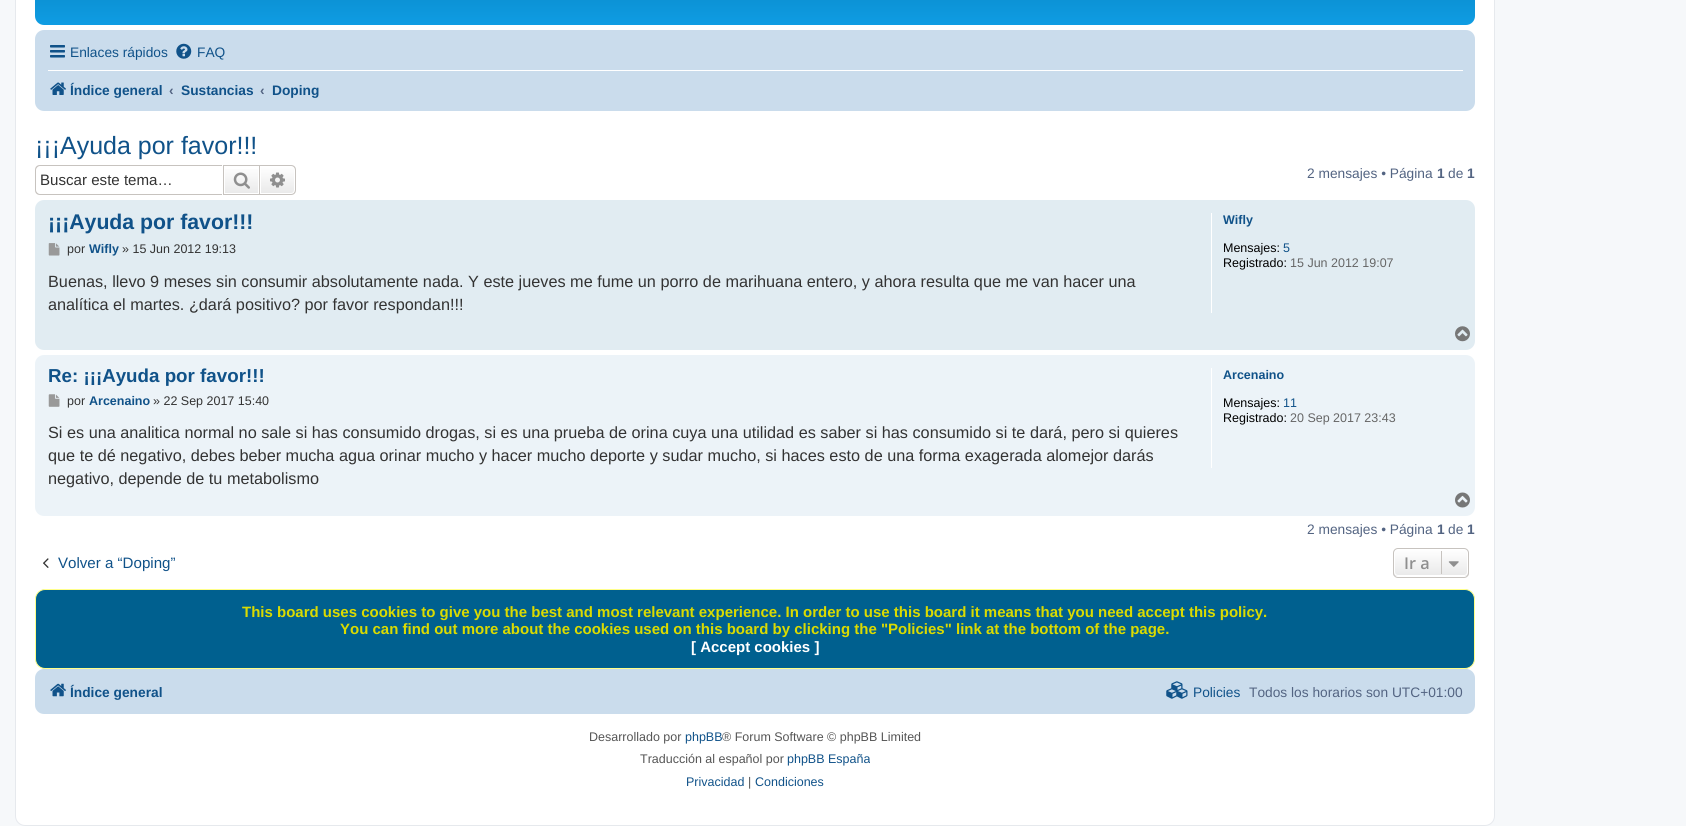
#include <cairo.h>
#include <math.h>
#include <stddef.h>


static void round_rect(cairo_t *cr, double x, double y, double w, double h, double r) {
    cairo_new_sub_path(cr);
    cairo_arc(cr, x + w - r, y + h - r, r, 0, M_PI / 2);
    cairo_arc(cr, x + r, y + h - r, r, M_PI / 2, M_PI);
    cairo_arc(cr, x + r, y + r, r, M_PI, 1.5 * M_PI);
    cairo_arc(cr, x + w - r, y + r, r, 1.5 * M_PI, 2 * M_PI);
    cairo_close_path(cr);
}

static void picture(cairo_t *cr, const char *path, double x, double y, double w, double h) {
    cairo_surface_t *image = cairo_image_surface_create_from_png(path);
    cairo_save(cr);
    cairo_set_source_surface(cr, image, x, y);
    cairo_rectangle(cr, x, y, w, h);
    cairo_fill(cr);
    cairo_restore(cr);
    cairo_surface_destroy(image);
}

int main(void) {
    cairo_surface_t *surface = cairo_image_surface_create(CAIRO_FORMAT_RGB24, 1686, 826);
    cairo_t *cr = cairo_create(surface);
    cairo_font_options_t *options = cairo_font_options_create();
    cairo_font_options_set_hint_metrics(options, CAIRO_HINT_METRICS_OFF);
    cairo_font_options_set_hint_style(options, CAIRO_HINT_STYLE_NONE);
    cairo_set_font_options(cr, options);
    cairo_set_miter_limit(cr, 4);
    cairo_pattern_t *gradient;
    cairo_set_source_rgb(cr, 0.961, 0.969, 0.98);
    cairo_paint(cr);
    cairo_set_source_rgb(cr, 1, 1, 1);
    round_rect(cr, 15.5, -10.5, 1479, 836, 9.5);
    cairo_fill_preserve(cr);
    cairo_set_source_rgb(cr, 0.902, 0.914, 0.929);
    cairo_set_line_width(cr, 1);
    cairo_stroke(cr);
    gradient = cairo_pattern_create_linear(755, -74, 755, 41);
    cairo_pattern_add_color_stop_rgba(gradient, 0, 0.416, 0.808, 1, 1);
    cairo_pattern_add_color_stop_rgba(gradient, 0.02, 0, 0.463, 0.694, 1);
    cairo_pattern_add_color_stop_rgba(gradient, 1, 0.071, 0.639, 0.922, 1);
    cairo_set_source(cr, gradient);
    cairo_pattern_destroy(gradient);
    round_rect(cr, 35, -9, 1440, 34, 9);
    cairo_fill(cr);
    cairo_set_source_rgb(cr, 0.792, 0.863, 0.922);
    round_rect(cr, 35, 30, 1440, 81, 9);
    cairo_fill(cr);
    picture(cr, "img1.png", 50, 45, 15, 13);
    cairo_select_font_face(cr, "Liberation Sans", CAIRO_FONT_SLANT_NORMAL, CAIRO_FONT_WEIGHT_NORMAL);
    cairo_set_font_size(cr, 13.75);
    cairo_set_source_rgb(cr, 0.063, 0.322, 0.537);
    cairo_move_to(cr, 70, 57);
    cairo_show_text(cr, "Enlaces rápidos");
    picture(cr, "img2.png", 176, 43, 16, 16);
    cairo_move_to(cr, 197, 57);
    cairo_show_text(cr, "FAQ");
    cairo_set_source_rgb(cr, 1, 1, 1);
    cairo_rectangle(cr, 48, 70, 1415, 1);
    cairo_fill(cr);
    picture(cr, "img3.png", 50, 82, 16, 13);
    cairo_select_font_face(cr, "Liberation Sans", CAIRO_FONT_SLANT_NORMAL, CAIRO_FONT_WEIGHT_BOLD);
    cairo_set_source_rgb(cr, 0.063, 0.322, 0.537);
    cairo_move_to(cr, 70, 95);
    cairo_show_text(cr, "Índice general");
    cairo_set_source_rgb(cr, 0.325, 0.392, 0.51);
    cairo_move_to(cr, 169, 95);
    cairo_show_text(cr, "‹");
    cairo_set_source_rgb(cr, 0.063, 0.322, 0.537);
    cairo_move_to(cr, 181, 95);
    cairo_show_text(cr, "Sustancias");
    cairo_set_source_rgb(cr, 0.325, 0.392, 0.51);
    cairo_move_to(cr, 260, 95);
    cairo_show_text(cr, "‹");
    cairo_set_source_rgb(cr, 0.063, 0.322, 0.537);
    cairo_move_to(cr, 272, 95);
    cairo_show_text(cr, "Doping");
    cairo_select_font_face(cr, "Liberation Sans", CAIRO_FONT_SLANT_NORMAL, CAIRO_FONT_WEIGHT_NORMAL);
    cairo_set_font_size(cr, 25);
    cairo_move_to(cr, 35, 154);
    cairo_show_text(cr, "¡¡¡Ayuda por favor!!!");
    cairo_set_source_rgb(cr, 0.78, 0.765, 0.749);
    cairo_set_fill_rule(cr, CAIRO_FILL_RULE_EVEN_ODD);
    cairo_new_path(cr);
    cairo_move_to(cr, 40, 165);
    cairo_line_to(cr, 222, 165);
    cairo_line_to(cr, 222, 195);
    cairo_line_to(cr, 40, 195);
    cairo_curve_to(cr, 37, 195, 35, 193, 35, 190);
    cairo_line_to(cr, 35, 170);
    cairo_curve_to(cr, 35, 167, 37, 165, 40, 165);
    cairo_close_path(cr);
    cairo_move_to(cr, 40, 166);
    cairo_line_to(cr, 222, 166);
    cairo_line_to(cr, 222, 194);
    cairo_line_to(cr, 40, 194);
    cairo_curve_to(cr, 38, 194, 36, 192, 36, 190);
    cairo_line_to(cr, 36, 170);
    cairo_curve_to(cr, 36, 168, 38, 166, 40, 166);
    cairo_close_path(cr);
    cairo_fill(cr);
    cairo_set_font_size(cr, 15.1);
    cairo_set_source_rgb(cr, 0.2, 0.2, 0.2);
    cairo_move_to(cr, 40, 185);
    cairo_show_text(cr, "Buscar este tema…");
    gradient = cairo_pattern_create_linear(241, 166, 241, 194);
    cairo_pattern_add_color_stop_rgba(gradient, 0, 1, 1, 1, 1);
    cairo_pattern_add_color_stop_rgba(gradient, 1, 0.914, 0.914, 0.914, 1);
    cairo_set_source(cr, gradient);
    cairo_pattern_destroy(gradient);
    cairo_rectangle(cr, 225, 169, 33, 24);
    cairo_fill(cr);
    cairo_rectangle(cr, 223.5, 165.5, 36, 29);
    cairo_set_source_rgb(cr, 0.78, 0.765, 0.749);
    cairo_stroke(cr);
    picture(cr, "img4.png", 233, 172, 17, 17);
    gradient = cairo_pattern_create_linear(278, 166, 278, 194);
    cairo_pattern_add_color_stop_rgba(gradient, 0, 1, 1, 1, 1);
    cairo_pattern_add_color_stop_rgba(gradient, 1, 0.914, 0.914, 0.914, 1);
    cairo_set_source(cr, gradient);
    cairo_pattern_destroy(gradient);
    cairo_new_path(cr);
    cairo_move_to(cr, 260.5, 166.5);
    cairo_line_to(cr, 291, 166.5);
    cairo_curve_to(cr, 293, 166.5, 294.5, 168, 294.5, 170);
    cairo_line_to(cr, 294.5, 190);
    cairo_curve_to(cr, 294.5, 192, 293, 193.5, 291, 193.5);
    cairo_line_to(cr, 260.5, 193.5);
    cairo_close_path(cr);
    cairo_fill_preserve(cr);
    cairo_set_source_rgb(cr, 1, 1, 1);
    cairo_stroke(cr);
    cairo_set_source_rgb(cr, 0.78, 0.765, 0.749);
    cairo_new_path(cr);
    cairo_move_to(cr, 260, 165);
    cairo_line_to(cr, 291, 165);
    cairo_curve_to(cr, 294, 165, 296, 167, 296, 170);
    cairo_line_to(cr, 296, 190);
    cairo_curve_to(cr, 296, 193, 294, 195, 291, 195);
    cairo_line_to(cr, 260, 195);
    cairo_close_path(cr);
    cairo_move_to(cr, 260, 166);
    cairo_line_to(cr, 291, 166);
    cairo_curve_to(cr, 293.5, 166, 295, 168, 295, 170);
    cairo_line_to(cr, 295, 190);
    cairo_curve_to(cr, 295, 192, 293.5, 194, 291, 194);
    cairo_line_to(cr, 260, 194);
    cairo_close_path(cr);
    cairo_fill(cr);
    picture(cr, "img5.png", 270, 172, 15, 16);
    cairo_set_font_size(cr, 13.75);
    cairo_set_source_rgb(cr, 0.325, 0.392, 0.51);
    cairo_move_to(cr, 1307, 178);
    cairo_show_text(cr, "2 mensajes • Página");
    cairo_select_font_face(cr, "Liberation Sans", CAIRO_FONT_SLANT_NORMAL, CAIRO_FONT_WEIGHT_BOLD);
    cairo_move_to(cr, 1437, 178);
    cairo_show_text(cr, "1");
    cairo_select_font_face(cr, "Liberation Sans", CAIRO_FONT_SLANT_NORMAL, CAIRO_FONT_WEIGHT_NORMAL);
    cairo_move_to(cr, 1448, 178);
    cairo_show_text(cr, "de");
    cairo_select_font_face(cr, "Liberation Sans", CAIRO_FONT_SLANT_NORMAL, CAIRO_FONT_WEIGHT_BOLD);
    cairo_move_to(cr, 1467, 178);
    cairo_show_text(cr, "1");
    cairo_set_source_rgb(cr, 0.882, 0.922, 0.949);
    round_rect(cr, 35, 200, 1440, 150, 9);
    cairo_fill(cr);
    cairo_set_font_size(cr, 21.25);
    cairo_set_source_rgb(cr, 0.063, 0.322, 0.537);
    cairo_move_to(cr, 48, 229);
    cairo_show_text(cr, "¡¡¡Ayuda por favor!!!");
    picture(cr, "img6.png", 48, 243, 12, 13);
    cairo_select_font_face(cr, "Liberation Sans", CAIRO_FONT_SLANT_NORMAL, CAIRO_FONT_WEIGHT_NORMAL);
    cairo_set_font_size(cr, 12.5);
    cairo_set_source_rgb(cr, 0.2, 0.2, 0.2);
    cairo_move_to(cr, 67, 253);
    cairo_show_text(cr, "por");
    cairo_select_font_face(cr, "Liberation Sans", CAIRO_FONT_SLANT_NORMAL, CAIRO_FONT_WEIGHT_BOLD);
    cairo_set_source_rgb(cr, 0.063, 0.322, 0.537);
    cairo_move_to(cr, 89, 253);
    cairo_show_text(cr, "Wifly");
    cairo_select_font_face(cr, "Liberation Sans", CAIRO_FONT_SLANT_NORMAL, CAIRO_FONT_WEIGHT_NORMAL);
    cairo_set_source_rgb(cr, 0.2, 0.2, 0.2);
    cairo_move_to(cr, 122, 253);
    cairo_show_text(cr, "» 15 Jun 2012 19:13");
    cairo_set_font_size(cr, 16.25);
    cairo_move_to(cr, 48, 287);
    cairo_show_text(cr, "Buenas, llevo 9 meses sin consumir absolutamente nada. Y este jueves me fume un porro de marihuana entero, y ahora resulta que me van hacer una");
    cairo_move_to(cr, 48, 310);
    cairo_show_text(cr, "analítica el martes. ¿dará positivo? por favor respondan!!!");
    cairo_set_source_rgb(cr, 1, 1, 1);
    cairo_rectangle(cr, 1211, 213, 1, 100);
    cairo_fill(cr);
    cairo_select_font_face(cr, "Liberation Sans", CAIRO_FONT_SLANT_NORMAL, CAIRO_FONT_WEIGHT_BOLD);
    cairo_set_font_size(cr, 12.5);
    cairo_set_source_rgb(cr, 0.063, 0.322, 0.537);
    cairo_move_to(cr, 1223, 224);
    cairo_show_text(cr, "Wifly");
    cairo_select_font_face(cr, "Liberation Sans", CAIRO_FONT_SLANT_NORMAL, CAIRO_FONT_WEIGHT_NORMAL);
    cairo_set_source_rgb(cr, 0, 0, 0);
    cairo_move_to(cr, 1223, 252);
    cairo_show_text(cr, "Mensajes:");
    cairo_set_source_rgb(cr, 0.063, 0.322, 0.537);
    cairo_move_to(cr, 1283, 252);
    cairo_show_text(cr, "5");
    cairo_set_source_rgb(cr, 0, 0, 0);
    cairo_move_to(cr, 1223, 267);
    cairo_show_text(cr, "Registrado:");
    cairo_set_source_rgb(cr, 0.4, 0.4, 0.4);
    cairo_move_to(cr, 1290, 267);
    cairo_show_text(cr, "15 Jun 2012 19:07");
    picture(cr, "img7.png", 1455, 326, 15, 16);
    cairo_set_source_rgb(cr, 0.925, 0.953, 0.969);
    round_rect(cr, 35, 355, 1440, 161, 9);
    cairo_fill(cr);
    cairo_select_font_face(cr, "Liberation Sans", CAIRO_FONT_SLANT_NORMAL, CAIRO_FONT_WEIGHT_BOLD);
    cairo_set_font_size(cr, 18.75);
    cairo_set_source_rgb(cr, 0.063, 0.322, 0.537);
    cairo_move_to(cr, 48, 382);
    cairo_show_text(cr, "Re: ¡¡¡Ayuda por favor!!!");
    picture(cr, "img8.png", 48, 394, 12, 13);
    cairo_select_font_face(cr, "Liberation Sans", CAIRO_FONT_SLANT_NORMAL, CAIRO_FONT_WEIGHT_NORMAL);
    cairo_set_font_size(cr, 12.5);
    cairo_set_source_rgb(cr, 0.2, 0.2, 0.2);
    cairo_move_to(cr, 67, 405);
    cairo_show_text(cr, "por");
    cairo_select_font_face(cr, "Liberation Sans", CAIRO_FONT_SLANT_NORMAL, CAIRO_FONT_WEIGHT_BOLD);
    cairo_set_source_rgb(cr, 0.063, 0.322, 0.537);
    cairo_move_to(cr, 89, 405);
    cairo_show_text(cr, "Arcenaino");
    cairo_select_font_face(cr, "Liberation Sans", CAIRO_FONT_SLANT_NORMAL, CAIRO_FONT_WEIGHT_NORMAL);
    cairo_set_source_rgb(cr, 0.2, 0.2, 0.2);
    cairo_move_to(cr, 153, 405);
    cairo_show_text(cr, "» 22 Sep 2017 15:40");
    cairo_set_font_size(cr, 16.25);
    cairo_move_to(cr, 48, 438);
    cairo_show_text(cr, "Si es una analitica normal no sale si has consumido drogas, si es una prueba de orina cuya una utilidad es saber si has consumido si te dará, pero si quieres");
    cairo_move_to(cr, 48, 461);
    cairo_show_text(cr, "que te dé negativo, debes beber mucha agua orinar mucho y hacer mucho deporte y sudar mucho, si haces esto de una forma exagerada alomejor darás");
    cairo_move_to(cr, 48, 484);
    cairo_show_text(cr, "negativo, depende de tu metabolismo");
    cairo_set_source_rgb(cr, 1, 1, 1);
    cairo_rectangle(cr, 1211, 368, 1, 100);
    cairo_fill(cr);
    cairo_select_font_face(cr, "Liberation Sans", CAIRO_FONT_SLANT_NORMAL, CAIRO_FONT_WEIGHT_BOLD);
    cairo_set_font_size(cr, 12.5);
    cairo_set_source_rgb(cr, 0.063, 0.322, 0.537);
    cairo_move_to(cr, 1223, 379);
    cairo_show_text(cr, "Arcenaino");
    cairo_select_font_face(cr, "Liberation Sans", CAIRO_FONT_SLANT_NORMAL, CAIRO_FONT_WEIGHT_NORMAL);
    cairo_set_source_rgb(cr, 0, 0, 0);
    cairo_move_to(cr, 1223, 407);
    cairo_show_text(cr, "Mensajes:");
    cairo_set_source_rgb(cr, 0.063, 0.322, 0.537);
    cairo_move_to(cr, 1283, 407);
    cairo_show_text(cr, "11");
    cairo_set_source_rgb(cr, 0, 0, 0);
    cairo_move_to(cr, 1223, 422);
    cairo_show_text(cr, "Registrado:");
    cairo_set_source_rgb(cr, 0.4, 0.4, 0.4);
    cairo_move_to(cr, 1290, 422);
    cairo_show_text(cr, "20 Sep 2017 23:43");
    picture(cr, "img9.png", 1455, 492, 15, 16);
    cairo_set_font_size(cr, 13.75);
    cairo_set_source_rgb(cr, 0.325, 0.392, 0.51);
    cairo_move_to(cr, 1307, 534);
    cairo_show_text(cr, "2 mensajes • Página");
    cairo_select_font_face(cr, "Liberation Sans", CAIRO_FONT_SLANT_NORMAL, CAIRO_FONT_WEIGHT_BOLD);
    cairo_move_to(cr, 1437, 534);
    cairo_show_text(cr, "1");
    cairo_select_font_face(cr, "Liberation Sans", CAIRO_FONT_SLANT_NORMAL, CAIRO_FONT_WEIGHT_NORMAL);
    cairo_move_to(cr, 1448, 534);
    cairo_show_text(cr, "de");
    cairo_select_font_face(cr, "Liberation Sans", CAIRO_FONT_SLANT_NORMAL, CAIRO_FONT_WEIGHT_BOLD);
    cairo_move_to(cr, 1467, 534);
    cairo_show_text(cr, "1");
    picture(cr, "img10.png", 43, 558, 6, 10);
    cairo_select_font_face(cr, "Liberation Sans", CAIRO_FONT_SLANT_NORMAL, CAIRO_FONT_WEIGHT_NORMAL);
    cairo_set_font_size(cr, 15.1);
    cairo_set_source_rgb(cr, 0.063, 0.322, 0.537);
    cairo_move_to(cr, 58, 568);
    cairo_show_text(cr, "Volver a “Doping”");
    cairo_save(cr);
    cairo_set_fill_rule(cr, CAIRO_FILL_RULE_WINDING);
    round_rect(cr, 1393, 548, 76, 30, 5);
    cairo_clip(cr);
    gradient = cairo_pattern_create_linear(1431, 549, 1431, 576);
    cairo_pattern_add_color_stop_rgba(gradient, 0, 1, 1, 1, 1);
    cairo_pattern_add_color_stop_rgba(gradient, 1, 0.914, 0.914, 0.914, 1);
    cairo_set_source(cr, gradient);
    cairo_pattern_destroy(gradient);
    cairo_rectangle(cr, 1393, 549, 76, 27);
    cairo_fill(cr);
    cairo_restore(cr);
    round_rect(cr, 1394.5, 549.5, 73, 26, 3.5);
    cairo_set_source_rgb(cr, 1, 1, 1);
    cairo_stroke(cr);
    round_rect(cr, 1393.5, 548.5, 75, 29, 4.5);
    cairo_set_source_rgb(cr, 0.78, 0.765, 0.749);
    cairo_stroke(cr);
    cairo_select_font_face(cr, "Open Sans SemiBold", CAIRO_FONT_SLANT_NORMAL, CAIRO_FONT_WEIGHT_NORMAL);
    cairo_set_font_size(cr, 16.25);
    cairo_set_source_rgb(cr, 0.561, 0.561, 0.561);
    cairo_move_to(cr, 1404, 569);
    cairo_show_text(cr, "Ir a");
    cairo_set_source_rgb(cr, 0.78, 0.765, 0.749);
    cairo_rectangle(cr, 1441, 551, 1, 23);
    cairo_fill(cr);
    picture(cr, "img11.png", 1448, 561, 11, 6);
    cairo_set_source_rgb(cr, 0, 0.376, 0.561);
    round_rect(cr, 35.5, 589.5, 1439, 79, 9.5);
    cairo_fill_preserve(cr);
    cairo_set_source_rgb(cr, 1, 1, 0.541);
    cairo_stroke(cr);
    cairo_select_font_face(cr, "Liberation Sans", CAIRO_FONT_SLANT_NORMAL, CAIRO_FONT_WEIGHT_BOLD);
    cairo_set_font_size(cr, 15);
    cairo_set_source_rgb(cr, 0.859, 0.859, 0);
    cairo_move_to(cr, 242, 617);
    cairo_show_text(cr, "This board uses cookies to give you the best and most relevant experience. In order to use this board it means that you need accept this policy.");
    cairo_move_to(cr, 340, 634);
    cairo_show_text(cr, "You can find out more about the cookies used on this board by clicking the \"Policies\" link at the bottom of the page.");
    cairo_set_source_rgb(cr, 1, 1, 1);
    cairo_move_to(cr, 691, 652);
    cairo_show_text(cr, "[ Accept cookies ]");
    cairo_set_source_rgb(cr, 0.792, 0.863, 0.922);
    round_rect(cr, 35, 669, 1440, 45, 9);
    cairo_fill(cr);
    picture(cr, "img12.png", 50, 683, 16, 14);
    cairo_set_font_size(cr, 13.75);
    cairo_set_source_rgb(cr, 0.063, 0.322, 0.537);
    cairo_move_to(cr, 70, 697);
    cairo_show_text(cr, "Índice general");
    picture(cr, "img13.png", 1166, 681, 22, 18);
    cairo_select_font_face(cr, "Liberation Sans", CAIRO_FONT_SLANT_NORMAL, CAIRO_FONT_WEIGHT_NORMAL);
    cairo_move_to(cr, 1193, 697);
    cairo_show_text(cr, "Policies");
    cairo_set_source_rgb(cr, 0.325, 0.392, 0.51);
    cairo_move_to(cr, 1249, 697);
    cairo_show_text(cr, "Todos los horarios son UTC+01:00");
    cairo_set_font_size(cr, 12.5);
    cairo_set_source_rgb(cr, 0.333, 0.333, 0.333);
    cairo_move_to(cr, 589, 741);
    cairo_show_text(cr, "Desarrollado por");
    cairo_set_source_rgb(cr, 0.063, 0.322, 0.537);
    cairo_move_to(cr, 685, 741);
    cairo_show_text(cr, "phpBB");
    cairo_set_source_rgb(cr, 0.333, 0.333, 0.333);
    cairo_move_to(cr, 722, 741);
    cairo_show_text(cr, "® Forum Software © phpBB Limited");
    cairo_move_to(cr, 640, 763);
    cairo_show_text(cr, "Traducción al español por");
    cairo_set_source_rgb(cr, 0.063, 0.322, 0.537);
    cairo_move_to(cr, 787, 763);
    cairo_show_text(cr, "phpBB España");
    cairo_move_to(cr, 686, 786);
    cairo_show_text(cr, "Privacidad");
    cairo_set_source_rgb(cr, 0.333, 0.333, 0.333);
    cairo_move_to(cr, 748, 786);
    cairo_show_text(cr, "|");
    cairo_set_source_rgb(cr, 0.063, 0.322, 0.537);
    cairo_move_to(cr, 755, 786);
    cairo_show_text(cr, "Condiciones");
    cairo_surface_write_to_png(surface, "page.png");
    cairo_font_options_destroy(options);
    cairo_destroy(cr);
    cairo_surface_destroy(surface);
    return 0;
}
